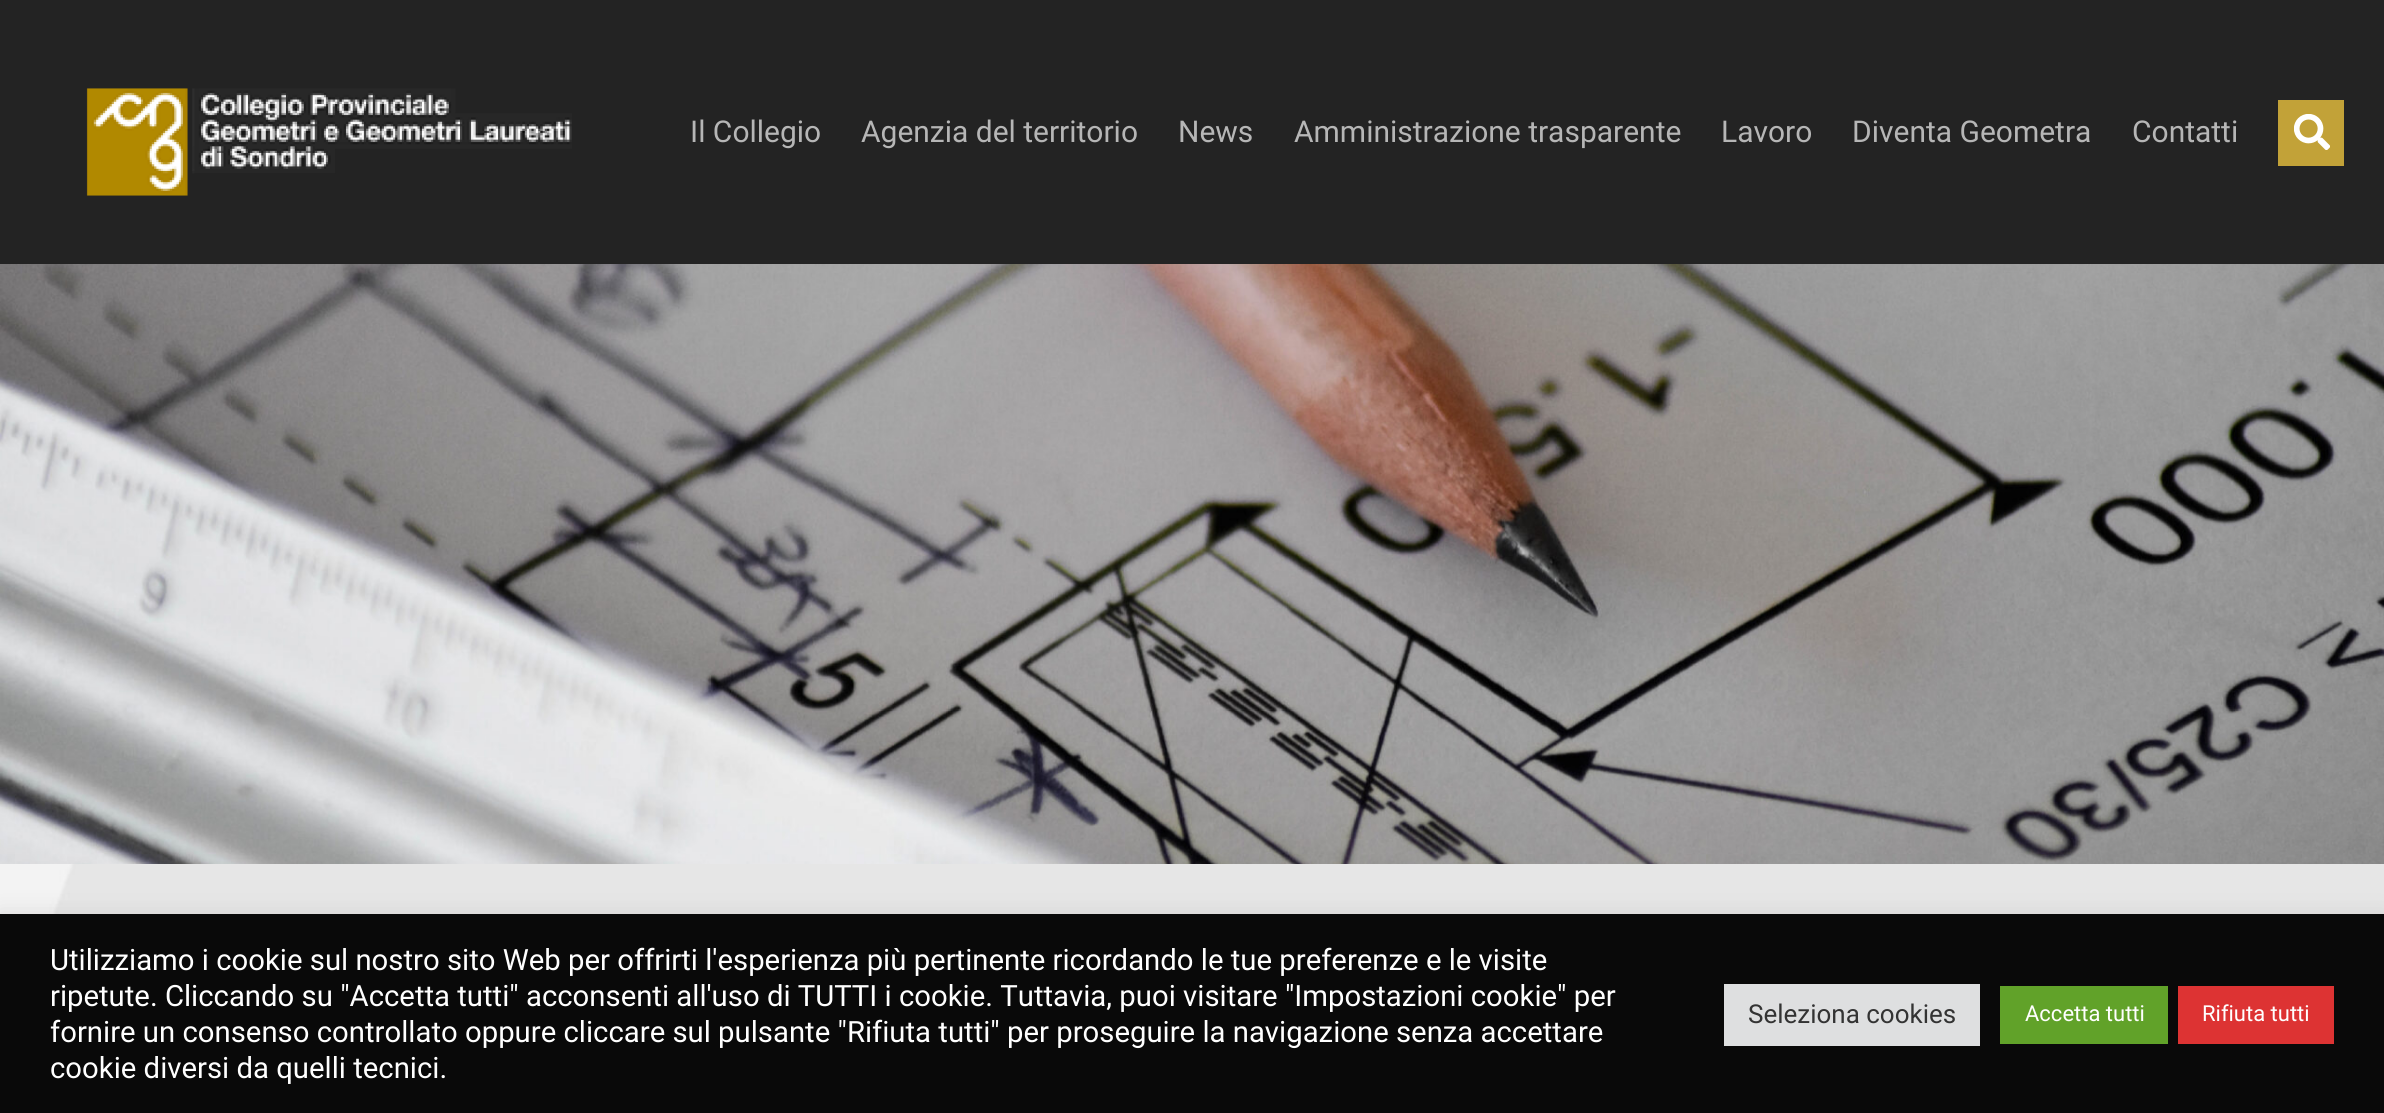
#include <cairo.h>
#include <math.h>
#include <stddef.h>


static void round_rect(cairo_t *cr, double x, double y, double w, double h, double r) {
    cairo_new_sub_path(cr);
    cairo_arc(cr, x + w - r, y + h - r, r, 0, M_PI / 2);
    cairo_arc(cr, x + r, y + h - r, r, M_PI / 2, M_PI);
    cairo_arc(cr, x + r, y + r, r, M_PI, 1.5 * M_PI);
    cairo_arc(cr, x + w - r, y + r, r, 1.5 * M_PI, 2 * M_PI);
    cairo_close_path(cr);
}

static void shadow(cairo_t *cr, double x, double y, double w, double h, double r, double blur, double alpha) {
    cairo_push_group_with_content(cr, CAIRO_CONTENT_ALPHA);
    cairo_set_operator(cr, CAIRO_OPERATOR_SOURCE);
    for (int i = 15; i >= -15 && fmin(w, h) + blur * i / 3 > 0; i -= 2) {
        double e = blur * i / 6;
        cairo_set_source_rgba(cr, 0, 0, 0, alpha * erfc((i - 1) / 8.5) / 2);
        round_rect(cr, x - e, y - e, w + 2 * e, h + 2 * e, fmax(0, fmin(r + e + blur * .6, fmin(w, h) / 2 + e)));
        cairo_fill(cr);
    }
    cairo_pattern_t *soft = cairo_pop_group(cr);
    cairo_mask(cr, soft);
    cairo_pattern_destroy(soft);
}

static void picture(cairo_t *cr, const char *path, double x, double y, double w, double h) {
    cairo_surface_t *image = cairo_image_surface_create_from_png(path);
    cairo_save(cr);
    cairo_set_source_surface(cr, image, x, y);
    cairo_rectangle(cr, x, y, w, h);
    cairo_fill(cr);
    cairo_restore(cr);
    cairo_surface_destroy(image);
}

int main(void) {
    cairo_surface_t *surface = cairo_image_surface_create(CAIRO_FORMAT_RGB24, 2384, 1113);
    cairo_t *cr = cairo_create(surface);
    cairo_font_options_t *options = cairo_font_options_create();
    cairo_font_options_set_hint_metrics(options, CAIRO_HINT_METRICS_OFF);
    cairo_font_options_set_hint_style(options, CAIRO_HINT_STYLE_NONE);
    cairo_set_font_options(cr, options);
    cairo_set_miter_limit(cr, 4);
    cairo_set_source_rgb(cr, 0.137, 0.137, 0.137);
    cairo_paint(cr);
    picture(cr, "img1.png", 86, 88, 486, 108);
    cairo_select_font_face(cr, "Roboto", CAIRO_FONT_SLANT_NORMAL, CAIRO_FONT_WEIGHT_NORMAL);
    cairo_set_font_size(cr, 30);
    cairo_set_source_rgb(cr, 0.714, 0.714, 0.714);
    cairo_move_to(cr, 690, 142);
    cairo_show_text(cr, "Il Collegio");
    cairo_move_to(cr, 861, 142);
    cairo_show_text(cr, "Agenzia del territorio");
    cairo_move_to(cr, 1178, 142);
    cairo_show_text(cr, "News");
    cairo_move_to(cr, 1294, 142);
    cairo_show_text(cr, "Amministrazione trasparente");
    cairo_move_to(cr, 1721, 142);
    cairo_show_text(cr, "Lavoro");
    cairo_move_to(cr, 1852, 142);
    cairo_show_text(cr, "Diventa Geometra");
    cairo_move_to(cr, 2132, 142);
    cairo_show_text(cr, "Contatti");
    cairo_set_source_rgb(cr, 0.761, 0.635, 0.22);
    cairo_rectangle(cr, 2278, 100, 66, 66);
    cairo_fill(cr);
    picture(cr, "img2.png", 2294, 114, 36, 36);
    picture(cr, "img3.png", 0, 264, 2384, 600);
    picture(cr, "img4.png", 0, 864, 2384, 50);
    cairo_set_source_rgb(cr, 0.675, 0.671, 0.671);
    shadow(cr, 0, 912, 2384, 200, 0, 10, 0.3);
    cairo_set_source_rgb(cr, 0.039, 0.039, 0.039);
    cairo_rectangle(cr, 0, 914, 2384, 199);
    cairo_fill(cr);
    cairo_set_font_size(cr, 29.33);
    cairo_set_source_rgb(cr, 1, 1, 1);
    cairo_move_to(cr, 50, 970);
    cairo_show_text(cr, "Utilizziamo i cookie sul nostro sito Web per offrirti l'esperienza più pertinente ricordando le tue preferenze e le visite");
    cairo_move_to(cr, 50, 1006);
    cairo_show_text(cr, "ripetute. Cliccando su \"Accetta tutti\" acconsenti all'uso di TUTTI i cookie. Tuttavia, puoi visitare \"Impostazioni cookie\" per");
    cairo_move_to(cr, 50, 1042);
    cairo_show_text(cr, "fornire un consenso controllato oppure cliccare sul pulsante \"Rifiuta tutti\" per proseguire la navigazione senza accettare");
    cairo_move_to(cr, 50, 1078);
    cairo_show_text(cr, "cookie diversi da quelli tecnici.");
    cairo_set_source_rgb(cr, 0.871, 0.875, 0.878);
    cairo_rectangle(cr, 1724, 984, 256, 62);
    cairo_fill(cr);
    cairo_set_font_size(cr, 26);
    cairo_set_source_rgb(cr, 0.2, 0.2, 0.2);
    cairo_move_to(cr, 1748, 1023);
    cairo_show_text(cr, "Seleziona cookies");
    cairo_set_source_rgb(cr, 0.38, 0.635, 0.161);
    cairo_rectangle(cr, 2000, 986, 168, 58);
    cairo_fill(cr);
    cairo_set_font_size(cr, 22);
    cairo_set_source_rgb(cr, 1, 1, 1);
    cairo_move_to(cr, 2025, 1021);
    cairo_show_text(cr, "Accetta tutti");
    cairo_set_source_rgb(cr, 0.867, 0.2, 0.2);
    cairo_rectangle(cr, 2178, 986, 156, 58);
    cairo_fill(cr);
    cairo_set_source_rgb(cr, 1, 1, 1);
    cairo_move_to(cr, 2202, 1021);
    cairo_show_text(cr, "Rifiuta tutti");
    cairo_surface_write_to_png(surface, "page.png");
    cairo_font_options_destroy(options);
    cairo_destroy(cr);
    cairo_surface_destroy(surface);
    return 0;
}
